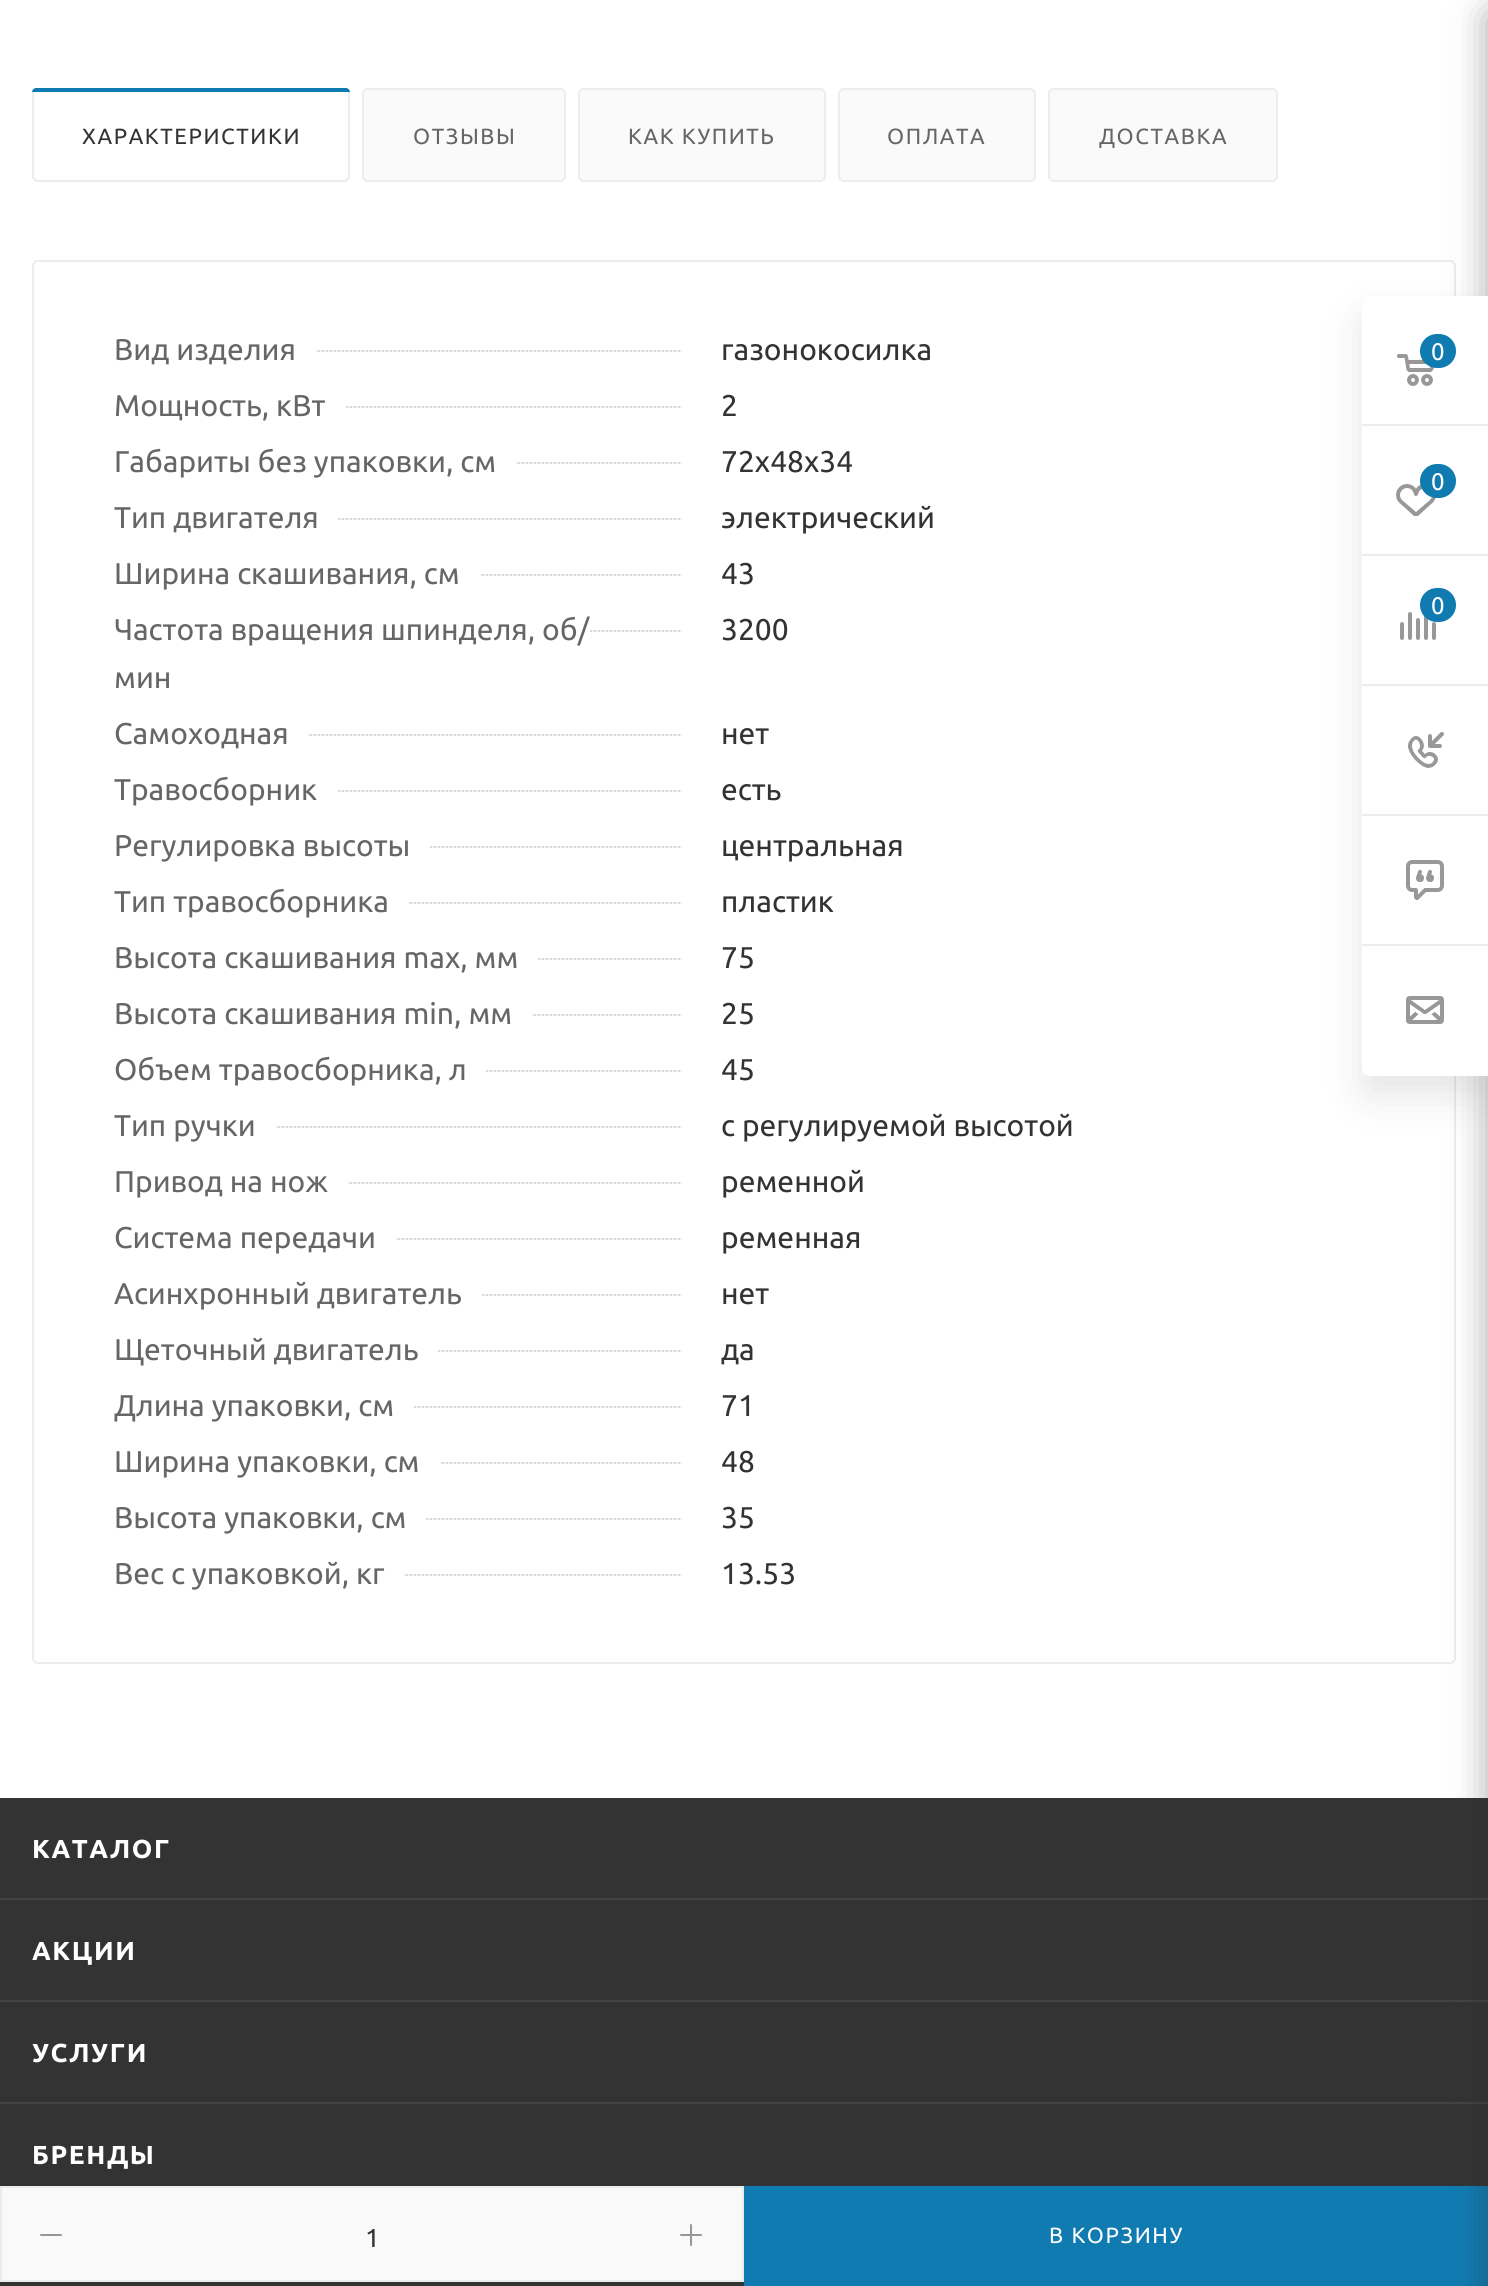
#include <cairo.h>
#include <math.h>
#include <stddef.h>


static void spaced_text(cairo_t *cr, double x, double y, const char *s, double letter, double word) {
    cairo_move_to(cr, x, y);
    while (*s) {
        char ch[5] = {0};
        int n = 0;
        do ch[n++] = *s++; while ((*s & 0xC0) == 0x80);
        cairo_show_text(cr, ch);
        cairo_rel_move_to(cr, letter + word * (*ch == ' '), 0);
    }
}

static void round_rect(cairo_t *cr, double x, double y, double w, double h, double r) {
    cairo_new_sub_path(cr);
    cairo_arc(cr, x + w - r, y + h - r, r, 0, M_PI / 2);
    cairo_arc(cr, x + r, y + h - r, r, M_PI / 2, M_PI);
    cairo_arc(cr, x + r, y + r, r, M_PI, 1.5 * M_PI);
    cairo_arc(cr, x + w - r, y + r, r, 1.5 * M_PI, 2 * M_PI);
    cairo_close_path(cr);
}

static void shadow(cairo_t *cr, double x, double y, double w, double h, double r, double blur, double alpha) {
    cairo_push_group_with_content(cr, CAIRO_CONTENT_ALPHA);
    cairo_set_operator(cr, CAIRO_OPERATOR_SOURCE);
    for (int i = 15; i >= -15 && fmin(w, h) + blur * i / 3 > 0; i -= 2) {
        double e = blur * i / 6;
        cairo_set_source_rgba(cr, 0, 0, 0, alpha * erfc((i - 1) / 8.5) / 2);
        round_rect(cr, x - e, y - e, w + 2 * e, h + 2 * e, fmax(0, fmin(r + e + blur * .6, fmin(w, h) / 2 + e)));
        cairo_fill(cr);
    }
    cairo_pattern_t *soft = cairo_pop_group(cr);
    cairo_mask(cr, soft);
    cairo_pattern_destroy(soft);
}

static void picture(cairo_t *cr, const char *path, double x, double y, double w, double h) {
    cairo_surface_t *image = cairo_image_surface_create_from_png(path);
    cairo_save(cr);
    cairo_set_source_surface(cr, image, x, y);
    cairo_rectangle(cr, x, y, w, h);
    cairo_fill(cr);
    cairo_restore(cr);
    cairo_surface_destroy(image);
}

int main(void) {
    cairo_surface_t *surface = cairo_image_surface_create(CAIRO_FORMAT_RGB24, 1488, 2286);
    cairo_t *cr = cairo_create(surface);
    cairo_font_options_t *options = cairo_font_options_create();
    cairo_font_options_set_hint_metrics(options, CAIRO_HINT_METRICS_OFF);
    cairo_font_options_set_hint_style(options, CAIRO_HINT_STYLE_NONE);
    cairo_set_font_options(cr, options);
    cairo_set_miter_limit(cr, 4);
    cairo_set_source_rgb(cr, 0.2, 0.2, 0.2);
    cairo_paint(cr);
    cairo_set_source_rgb(cr, 1, 1, 1);
    cairo_rectangle(cr, 0, 0, 1488, 1798);
    cairo_fill(cr);
    cairo_set_source_rgb(cr, 0.98, 0.98, 0.98);
    round_rect(cr, 33, 89, 316, 92, 5);
    cairo_fill_preserve(cr);
    cairo_set_source_rgb(cr, 0.925, 0.925, 0.925);
    cairo_stroke(cr);
    cairo_set_source_rgb(cr, 1, 1, 1);
    round_rect(cr, 34, 90, 314, 90, 6);
    cairo_fill(cr);
    cairo_set_source_rgb(cr, 0.063, 0.482, 0.694);
    cairo_new_path(cr);
    cairo_move_to(cr, 36, 88);
    cairo_line_to(cr, 346, 88);
    cairo_curve_to(cr, 348, 88, 350, 90, 350, 92);
    cairo_line_to(cr, 32, 92);
    cairo_curve_to(cr, 32, 90, 34, 88, 36, 88);
    cairo_close_path(cr);
    cairo_fill(cr);
    cairo_select_font_face(cr, "Ubuntu", CAIRO_FONT_SLANT_NORMAL, CAIRO_FONT_WEIGHT_NORMAL);
    cairo_set_font_size(cr, 22);
    cairo_set_source_rgb(cr, 0.2, 0.2, 0.2);
    spaced_text(cr, 82, 144, "ХАРАКТЕРИСТИКИ", 1.6, 0);
    cairo_set_source_rgb(cr, 0.98, 0.98, 0.98);
    round_rect(cr, 363, 89, 202, 92, 5);
    cairo_fill_preserve(cr);
    cairo_set_source_rgb(cr, 0.925, 0.925, 0.925);
    cairo_stroke(cr);
    cairo_set_source_rgb(cr, 0.4, 0.4, 0.4);
    spaced_text(cr, 413, 144, "ОТЗЫВЫ", 1.6, 0);
    cairo_set_source_rgb(cr, 0.98, 0.98, 0.98);
    round_rect(cr, 579, 89, 246, 92, 5);
    cairo_fill_preserve(cr);
    cairo_set_source_rgb(cr, 0.925, 0.925, 0.925);
    cairo_stroke(cr);
    cairo_set_source_rgb(cr, 0.4, 0.4, 0.4);
    spaced_text(cr, 628, 144, "КАК КУПИТЬ", 1.6, 0);
    cairo_set_source_rgb(cr, 0.98, 0.98, 0.98);
    round_rect(cr, 839, 89, 196, 92, 5);
    cairo_fill_preserve(cr);
    cairo_set_source_rgb(cr, 0.925, 0.925, 0.925);
    cairo_stroke(cr);
    cairo_set_source_rgb(cr, 0.4, 0.4, 0.4);
    spaced_text(cr, 887, 144, "ОПЛАТА", 1.6, 0);
    cairo_set_source_rgb(cr, 0.98, 0.98, 0.98);
    round_rect(cr, 1049, 89, 228, 92, 5);
    cairo_fill_preserve(cr);
    cairo_set_source_rgb(cr, 0.925, 0.925, 0.925);
    cairo_stroke(cr);
    cairo_set_source_rgb(cr, 0.4, 0.4, 0.4);
    spaced_text(cr, 1099, 144, "ДОСТАВКА", 1.6, 0);
    round_rect(cr, 33, 261, 1422, 1402, 5);
    cairo_set_source_rgb(cr, 0.925, 0.925, 0.925);
    cairo_stroke(cr);
    picture(cr, "img1.png", 316, 350, 366, 2);
    cairo_set_font_size(cr, 30);
    cairo_set_source_rgb(cr, 0.4, 0.4, 0.4);
    cairo_move_to(cr, 114, 360);
    cairo_show_text(cr, "Вид изделия");
    cairo_set_source_rgb(cr, 0.2, 0.2, 0.2);
    cairo_move_to(cr, 721, 360);
    cairo_show_text(cr, "газонокосилка");
    picture(cr, "img2.png", 346, 406, 336, 2);
    cairo_set_source_rgb(cr, 0.4, 0.4, 0.4);
    cairo_move_to(cr, 114, 416);
    cairo_show_text(cr, "Мощность, кВт");
    cairo_set_source_rgb(cr, 0.2, 0.2, 0.2);
    cairo_move_to(cr, 721, 416);
    cairo_show_text(cr, "2");
    picture(cr, "img3.png", 516, 462, 166, 2);
    cairo_set_source_rgb(cr, 0.4, 0.4, 0.4);
    cairo_move_to(cr, 114, 472);
    cairo_show_text(cr, "Габариты без упаковки, см");
    cairo_set_source_rgb(cr, 0.2, 0.2, 0.2);
    cairo_move_to(cr, 721, 472);
    cairo_show_text(cr, "72х48х34");
    picture(cr, "img4.png", 338, 518, 344, 2);
    cairo_set_source_rgb(cr, 0.4, 0.4, 0.4);
    cairo_move_to(cr, 114, 528);
    cairo_show_text(cr, "Тип двигателя");
    cairo_set_source_rgb(cr, 0.2, 0.2, 0.2);
    cairo_move_to(cr, 721, 528);
    cairo_show_text(cr, "электрический");
    picture(cr, "img5.png", 480, 574, 202, 2);
    cairo_set_source_rgb(cr, 0.4, 0.4, 0.4);
    cairo_move_to(cr, 114, 584);
    cairo_show_text(cr, "Ширина скашивания, см");
    cairo_set_source_rgb(cr, 0.2, 0.2, 0.2);
    cairo_move_to(cr, 721, 584);
    cairo_show_text(cr, "43");
    picture(cr, "img6.png", 590, 630, 92, 2);
    cairo_set_source_rgb(cr, 0.4, 0.4, 0.4);
    cairo_move_to(cr, 114, 640);
    cairo_show_text(cr, "Частота вращения шпинделя, об/");
    cairo_move_to(cr, 114, 688);
    cairo_show_text(cr, "мин");
    cairo_set_source_rgb(cr, 0.2, 0.2, 0.2);
    cairo_move_to(cr, 721, 640);
    cairo_show_text(cr, "3200");
    picture(cr, "img7.png", 308, 734, 374, 2);
    cairo_set_source_rgb(cr, 0.4, 0.4, 0.4);
    cairo_move_to(cr, 114, 744);
    cairo_show_text(cr, "Самоходная");
    cairo_set_source_rgb(cr, 0.2, 0.2, 0.2);
    cairo_move_to(cr, 721, 744);
    cairo_show_text(cr, "нет");
    picture(cr, "img4.png", 338, 790, 344, 2);
    cairo_set_source_rgb(cr, 0.4, 0.4, 0.4);
    cairo_move_to(cr, 114, 800);
    cairo_show_text(cr, "Травосборник");
    cairo_set_source_rgb(cr, 0.2, 0.2, 0.2);
    cairo_move_to(cr, 721, 800);
    cairo_show_text(cr, "есть");
    picture(cr, "img8.png", 430, 846, 252, 2);
    cairo_set_source_rgb(cr, 0.4, 0.4, 0.4);
    cairo_move_to(cr, 114, 856);
    cairo_show_text(cr, "Регулировка высоты");
    cairo_set_source_rgb(cr, 0.2, 0.2, 0.2);
    cairo_move_to(cr, 721, 856);
    cairo_show_text(cr, "центральная");
    picture(cr, "img9.png", 408, 902, 274, 2);
    cairo_set_source_rgb(cr, 0.4, 0.4, 0.4);
    cairo_move_to(cr, 114, 912);
    cairo_show_text(cr, "Тип травосборника");
    cairo_set_source_rgb(cr, 0.2, 0.2, 0.2);
    cairo_move_to(cr, 721, 912);
    cairo_show_text(cr, "пластик");
    picture(cr, "img10.png", 538, 958, 144, 2);
    cairo_set_source_rgb(cr, 0.4, 0.4, 0.4);
    cairo_move_to(cr, 114, 968);
    cairo_show_text(cr, "Высота скашивания max, мм");
    cairo_set_source_rgb(cr, 0.2, 0.2, 0.2);
    cairo_move_to(cr, 721, 968);
    cairo_show_text(cr, "75");
    picture(cr, "img11.png", 532, 1014, 150, 2);
    cairo_set_source_rgb(cr, 0.4, 0.4, 0.4);
    cairo_move_to(cr, 114, 1024);
    cairo_show_text(cr, "Высота скашивания min, мм");
    cairo_set_source_rgb(cr, 0.2, 0.2, 0.2);
    cairo_move_to(cr, 721, 1024);
    cairo_show_text(cr, "25");
    picture(cr, "img12.png", 486, 1070, 196, 2);
    cairo_set_source_rgb(cr, 0.4, 0.4, 0.4);
    cairo_move_to(cr, 114, 1080);
    cairo_show_text(cr, "Объем травосборника, л");
    cairo_set_source_rgb(cr, 0.2, 0.2, 0.2);
    cairo_move_to(cr, 721, 1080);
    cairo_show_text(cr, "45");
    picture(cr, "img13.png", 276, 1126, 406, 2);
    cairo_set_source_rgb(cr, 0.4, 0.4, 0.4);
    cairo_move_to(cr, 114, 1136);
    cairo_show_text(cr, "Тип ручки");
    cairo_set_source_rgb(cr, 0.2, 0.2, 0.2);
    cairo_move_to(cr, 721, 1136);
    cairo_show_text(cr, "с регулируемой высотой");
    picture(cr, "img14.png", 348, 1182, 334, 2);
    cairo_set_source_rgb(cr, 0.4, 0.4, 0.4);
    cairo_move_to(cr, 114, 1192);
    cairo_show_text(cr, "Привод на нож");
    cairo_set_source_rgb(cr, 0.2, 0.2, 0.2);
    cairo_move_to(cr, 721, 1192);
    cairo_show_text(cr, "ременной");
    picture(cr, "img15.png", 396, 1238, 286, 2);
    cairo_set_source_rgb(cr, 0.4, 0.4, 0.4);
    cairo_move_to(cr, 114, 1248);
    cairo_show_text(cr, "Система передачи");
    cairo_set_source_rgb(cr, 0.2, 0.2, 0.2);
    cairo_move_to(cr, 721, 1248);
    cairo_show_text(cr, "ременная");
    picture(cr, "img16.png", 482, 1294, 200, 2);
    cairo_set_source_rgb(cr, 0.4, 0.4, 0.4);
    cairo_move_to(cr, 114, 1304);
    cairo_show_text(cr, "Асинхронный двигатель");
    cairo_set_source_rgb(cr, 0.2, 0.2, 0.2);
    cairo_move_to(cr, 721, 1304);
    cairo_show_text(cr, "нет");
    picture(cr, "img17.png", 438, 1350, 244, 2);
    cairo_set_source_rgb(cr, 0.4, 0.4, 0.4);
    cairo_move_to(cr, 114, 1360);
    cairo_show_text(cr, "Щеточный двигатель");
    cairo_set_source_rgb(cr, 0.2, 0.2, 0.2);
    cairo_move_to(cr, 721, 1360);
    cairo_show_text(cr, "да");
    picture(cr, "img18.png", 414, 1406, 268, 2);
    cairo_set_source_rgb(cr, 0.4, 0.4, 0.4);
    cairo_move_to(cr, 114, 1416);
    cairo_show_text(cr, "Длина упаковки, см");
    cairo_set_source_rgb(cr, 0.2, 0.2, 0.2);
    cairo_move_to(cr, 721, 1416);
    cairo_show_text(cr, "71");
    picture(cr, "img19.png", 440, 1462, 242, 2);
    cairo_set_source_rgb(cr, 0.4, 0.4, 0.4);
    cairo_move_to(cr, 114, 1472);
    cairo_show_text(cr, "Ширина упаковки, см");
    cairo_set_source_rgb(cr, 0.2, 0.2, 0.2);
    cairo_move_to(cr, 721, 1472);
    cairo_show_text(cr, "48");
    picture(cr, "img20.png", 426, 1518, 256, 2);
    cairo_set_source_rgb(cr, 0.4, 0.4, 0.4);
    cairo_move_to(cr, 114, 1528);
    cairo_show_text(cr, "Высота упаковки, см");
    cairo_set_source_rgb(cr, 0.2, 0.2, 0.2);
    cairo_move_to(cr, 721, 1528);
    cairo_show_text(cr, "35");
    picture(cr, "img21.png", 404, 1574, 278, 2);
    cairo_set_source_rgb(cr, 0.4, 0.4, 0.4);
    cairo_move_to(cr, 114, 1584);
    cairo_show_text(cr, "Вес с упаковкой, кг");
    cairo_set_source_rgb(cr, 0.2, 0.2, 0.2);
    cairo_move_to(cr, 721, 1584);
    cairo_show_text(cr, "13.53");
    cairo_set_source_rgb(cr, 0.973, 0.973, 0.973);
    cairo_rectangle(cr, 1, 2187, 742, 94);
    cairo_fill_preserve(cr);
    cairo_set_source_rgb(cr, 0.925, 0.925, 0.925);
    cairo_stroke(cr);
    cairo_set_source_rgb(cr, 0.588, 0.588, 0.588);
    round_rect(cr, 40, 2234, 22, 2, 1);
    cairo_fill(cr);
    cairo_set_font_size(cr, 26);
    cairo_set_source_rgb(cr, 0.2, 0.2, 0.2);
    cairo_move_to(cr, 365, 2247);
    cairo_show_text(cr, "1");
    picture(cr, "img22.png", 680, 2224, 22, 22);
    cairo_set_source_rgb(cr, 0.063, 0.482, 0.694);
    cairo_rectangle(cr, 744, 2186, 744, 100);
    cairo_fill(cr);
    cairo_set_font_size(cr, 22);
    cairo_set_source_rgb(cr, 1, 1, 1);
    spaced_text(cr, 1049, 2243, "В КОРЗИНУ", 1.6, 0);
    cairo_set_source_rgb(cr, 0.263, 0.263, 0.263);
    cairo_rectangle(cr, 0, 1898, 1488, 2);
    cairo_fill(cr);
    cairo_rectangle(cr, 0, 2000, 1488, 2);
    cairo_fill(cr);
    cairo_rectangle(cr, 0, 2102, 1488, 2);
    cairo_fill(cr);
    cairo_set_source_rgb(cr, 0.173, 0.173, 0.173);
    shadow(cr, 1488, 12, 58, 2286, 4, 18, 0.4);
    cairo_set_source_rgb(cr, 0, 0, 0);
    shadow(cr, 1362, 316, 126, 780, 8, 20, 0.1);
    cairo_set_source_rgb(cr, 1, 1, 1);
    cairo_new_path(cr);
    cairo_move_to(cr, 1370, 296);
    cairo_line_to(cr, 1488, 296);
    cairo_line_to(cr, 1488, 1076);
    cairo_line_to(cr, 1370, 1076);
    cairo_curve_to(cr, 1365.5, 1076, 1362, 1072.5, 1362, 1068);
    cairo_line_to(cr, 1362, 304);
    cairo_curve_to(cr, 1362, 299.5, 1365.5, 296, 1370, 296);
    cairo_close_path(cr);
    cairo_fill(cr);
    cairo_set_source_rgb(cr, 0.925, 0.925, 0.925);
    cairo_rectangle(cr, 1362, 424, 126, 2);
    cairo_fill(cr);
    picture(cr, "img23.png", 1397, 354, 37, 32);
    cairo_set_source_rgb(cr, 0.063, 0.482, 0.694);
    round_rect(cr, 1420, 334, 36, 34, 17);
    cairo_fill(cr);
    cairo_set_font_size(cr, 24);
    cairo_set_source_rgb(cr, 1, 1, 1);
    cairo_move_to(cr, 1431, 360);
    cairo_show_text(cr, "0");
    cairo_set_source_rgb(cr, 0.925, 0.925, 0.925);
    cairo_rectangle(cr, 1362, 554, 126, 2);
    cairo_fill(cr);
    picture(cr, "img24.png", 1396, 484, 40, 32);
    cairo_set_source_rgb(cr, 0.063, 0.482, 0.694);
    round_rect(cr, 1420, 464, 36, 34, 17);
    cairo_fill(cr);
    cairo_set_source_rgb(cr, 1, 1, 1);
    cairo_move_to(cr, 1431, 490);
    cairo_show_text(cr, "0");
    cairo_set_source_rgb(cr, 0.925, 0.925, 0.925);
    cairo_rectangle(cr, 1362, 684, 126, 2);
    cairo_fill(cr);
    picture(cr, "img25.png", 1400, 612, 36, 28);
    cairo_set_source_rgb(cr, 0.063, 0.482, 0.694);
    round_rect(cr, 1420, 588, 36, 34, 17);
    cairo_fill(cr);
    cairo_set_source_rgb(cr, 1, 1, 1);
    cairo_move_to(cr, 1431, 614);
    cairo_show_text(cr, "0");
    cairo_set_source_rgb(cr, 0.925, 0.925, 0.925);
    cairo_rectangle(cr, 1362, 814, 126, 2);
    cairo_fill(cr);
    picture(cr, "img26.png", 1408, 732, 36, 36);
    cairo_rectangle(cr, 1362, 944, 126, 2);
    cairo_fill(cr);
    picture(cr, "img27.png", 1406, 860, 38, 40);
    picture(cr, "img28.png", 1406, 996, 38, 28);
    cairo_select_font_face(cr, "Ubuntu", CAIRO_FONT_SLANT_NORMAL, CAIRO_FONT_WEIGHT_BOLD);
    cairo_set_font_size(cr, 26);
    cairo_set_source_rgb(cr, 1, 1, 1);
    spaced_text(cr, 32, 1858, "КАТАЛОГ", 1.6, 0);
    spaced_text(cr, 32, 1960, "АКЦИИ", 1.6, 0);
    spaced_text(cr, 32, 2062, "УСЛУГИ", 1.6, 0);
    spaced_text(cr, 32, 2164, "БРЕНДЫ", 1.6, 0);
    cairo_surface_write_to_png(surface, "page.png");
    cairo_font_options_destroy(options);
    cairo_destroy(cr);
    cairo_surface_destroy(surface);
    return 0;
}
